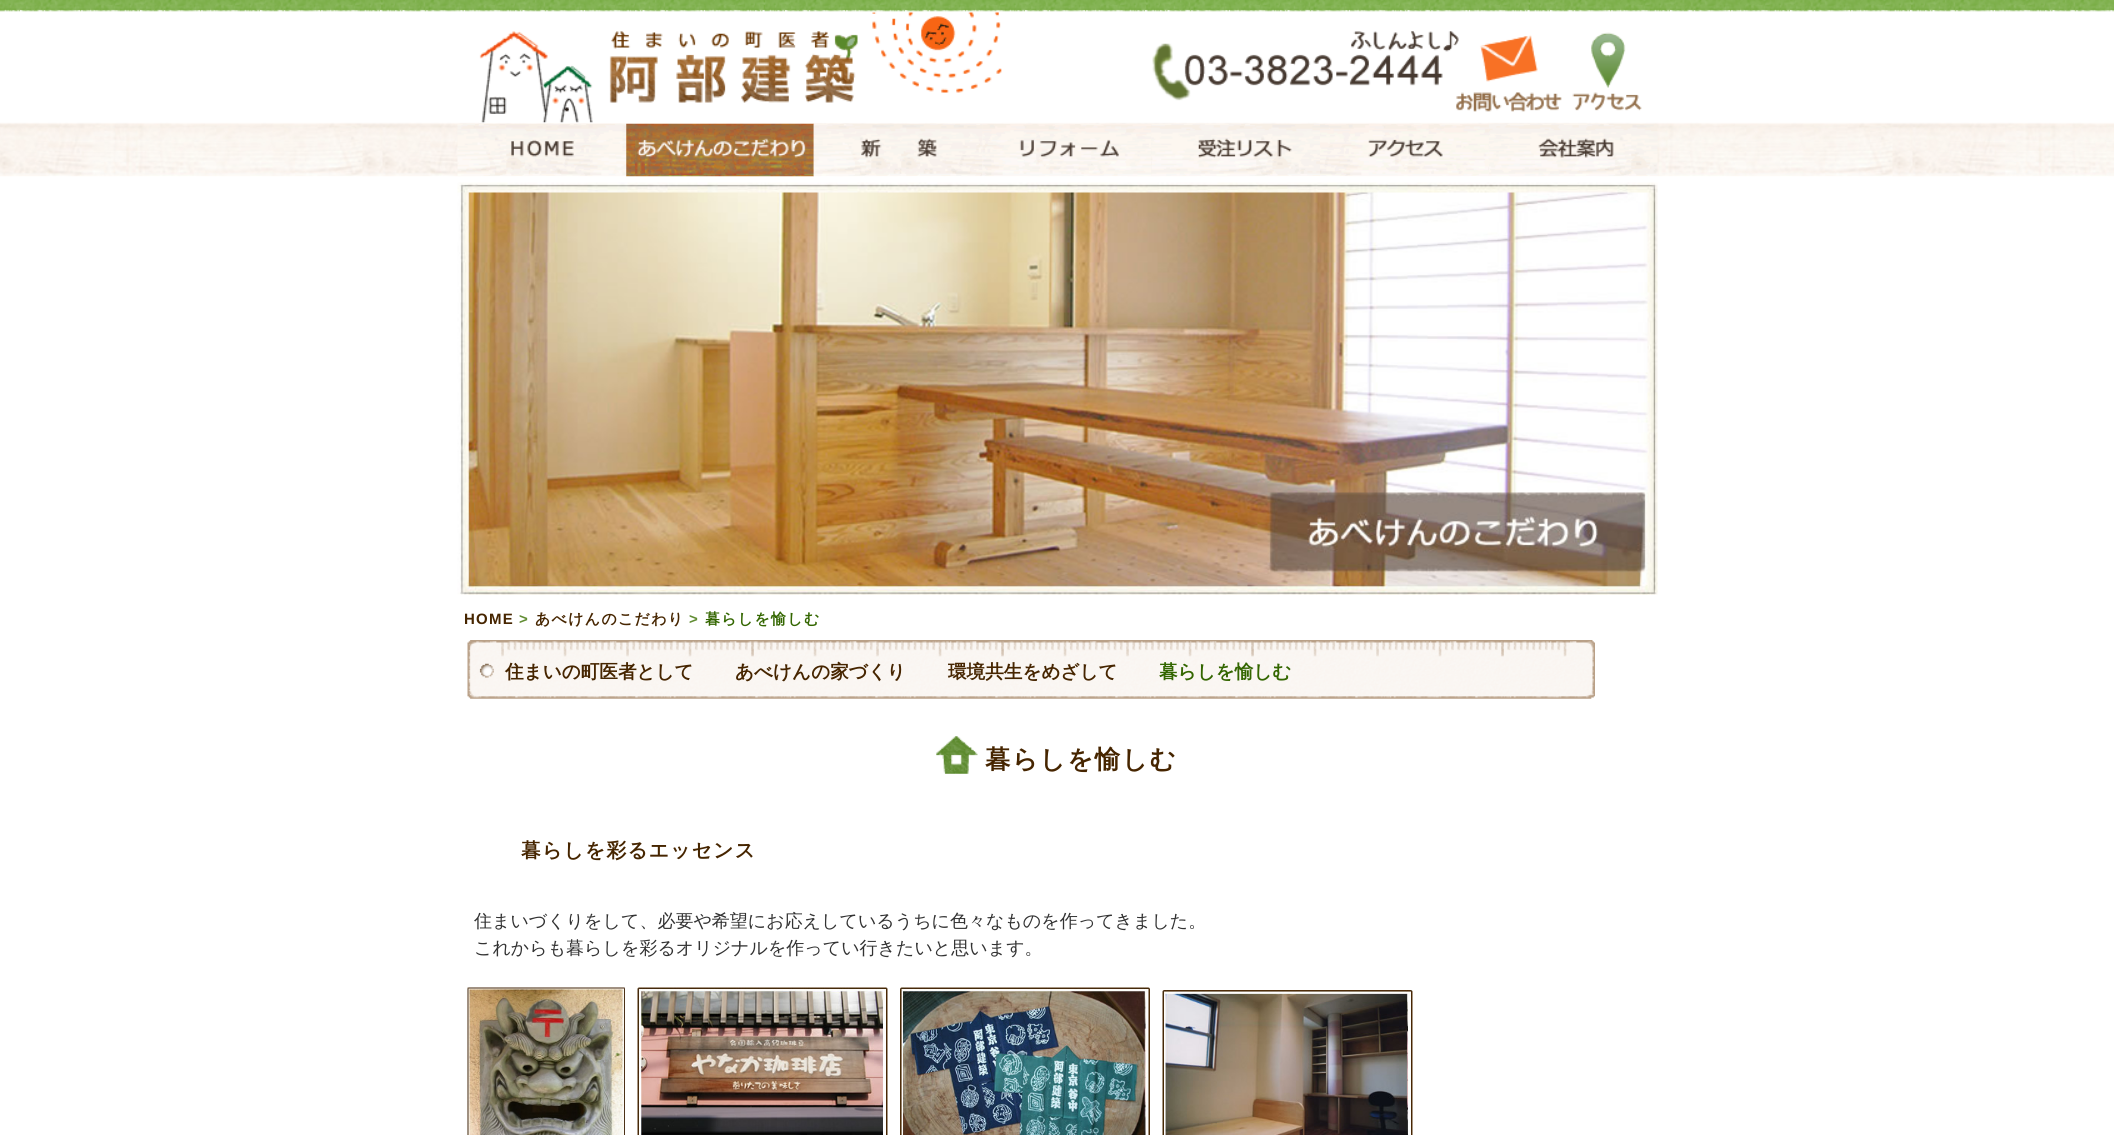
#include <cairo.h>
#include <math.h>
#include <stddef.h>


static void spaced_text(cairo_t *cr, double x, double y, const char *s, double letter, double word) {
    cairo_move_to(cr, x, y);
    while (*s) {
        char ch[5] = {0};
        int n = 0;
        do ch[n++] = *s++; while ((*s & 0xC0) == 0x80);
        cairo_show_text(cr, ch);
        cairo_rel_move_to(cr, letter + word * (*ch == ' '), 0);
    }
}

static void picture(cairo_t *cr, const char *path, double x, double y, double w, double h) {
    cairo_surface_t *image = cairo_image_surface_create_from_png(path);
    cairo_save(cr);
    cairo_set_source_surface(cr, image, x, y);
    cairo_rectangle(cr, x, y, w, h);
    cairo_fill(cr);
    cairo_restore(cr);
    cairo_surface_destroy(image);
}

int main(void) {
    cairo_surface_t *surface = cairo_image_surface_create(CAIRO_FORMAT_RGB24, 2114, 1135);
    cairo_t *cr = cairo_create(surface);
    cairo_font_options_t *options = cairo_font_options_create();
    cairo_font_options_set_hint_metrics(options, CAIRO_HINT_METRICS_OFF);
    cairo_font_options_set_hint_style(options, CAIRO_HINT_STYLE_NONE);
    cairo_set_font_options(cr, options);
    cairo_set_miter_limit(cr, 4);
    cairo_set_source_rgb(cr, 1, 1, 1);
    cairo_paint(cr);
    picture(cr, "img1.png", 0, 0, 2114, 123);
    picture(cr, "img2.png", 479, 12, 523, 111);
    picture(cr, "img3.png", 1152, 31, 490, 81);
    picture(cr, "img4.png", 0, 122, 2114, 55);
    picture(cr, "img5.png", 457, 124, 169, 52);
    picture(cr, "img6.png", 626, 123, 188, 54);
    picture(cr, "img7.png", 813, 124, 170, 52);
    picture(cr, "img8.png", 982, 124, 170, 52);
    picture(cr, "img9.png", 1151, 124, 169, 52);
    picture(cr, "img10.png", 1320, 124, 169, 52);
    picture(cr, "img11.png", 1489, 124, 169, 52);
    picture(cr, "img12.png", 457, 182, 1201, 413);
    cairo_select_font_face(cr, "Liberation Sans", CAIRO_FONT_SLANT_NORMAL, CAIRO_FONT_WEIGHT_BOLD);
    cairo_set_font_size(cr, 15);
    cairo_set_source_rgb(cr, 0.275, 0.145, 0);
    spaced_text(cr, 464, 624, "HOME", 1.25, 0);
    cairo_set_source_rgb(cr, 0.38, 0.553, 0.2);
    spaced_text(cr, 519, 624, ">", 1.25, 0);
    cairo_select_font_face(cr, "WenQuanYi Zen Hei", CAIRO_FONT_SLANT_NORMAL, CAIRO_FONT_WEIGHT_BOLD);
    cairo_set_source_rgb(cr, 0.275, 0.145, 0);
    spaced_text(cr, 535, 624, "あべけんのこだわり", 1.25, 0);
    cairo_select_font_face(cr, "Liberation Sans", CAIRO_FONT_SLANT_NORMAL, CAIRO_FONT_WEIGHT_BOLD);
    cairo_set_source_rgb(cr, 0.38, 0.553, 0.2);
    spaced_text(cr, 689, 624, ">", 1.25, 0);
    cairo_select_font_face(cr, "WenQuanYi Zen Hei", CAIRO_FONT_SLANT_NORMAL, CAIRO_FONT_WEIGHT_BOLD);
    cairo_set_source_rgb(cr, 0.2, 0.4, 0);
    spaced_text(cr, 705, 624, "暮らしを愉しむ", 1.25, 0);
    picture(cr, "img13.png", 467, 640, 1128, 59);
    cairo_set_font_size(cr, 18.6);
    cairo_set_source_rgb(cr, 0.275, 0.145, 0);
    cairo_move_to(cr, 505, 678);
    cairo_show_text(cr, "住まいの町医者として");
    cairo_move_to(cr, 735, 678);
    cairo_show_text(cr, "あべけんの家づくり");
    cairo_move_to(cr, 948, 678);
    cairo_show_text(cr, "環境共生をめざして");
    cairo_set_source_rgb(cr, 0.2, 0.4, 0);
    cairo_move_to(cr, 1159, 678);
    cairo_show_text(cr, "暮らしを愉しむ");
    picture(cr, "img14.png", 936, 736, 42, 38);
    cairo_set_font_size(cr, 25.5);
    cairo_set_source_rgb(cr, 0.275, 0.145, 0);
    spaced_text(cr, 985, 768, "暮らしを愉しむ", 1.5, 0);
    cairo_set_font_size(cr, 19.75);
    spaced_text(cr, 521, 857, "暮らしを彩るエッセンス", 1.25, 0);
    cairo_select_font_face(cr, "WenQuanYi Zen Hei Medium", CAIRO_FONT_SLANT_NORMAL, CAIRO_FONT_WEIGHT_NORMAL);
    cairo_set_font_size(cr, 18);
    cairo_set_source_rgb(cr, 0.2, 0.2, 0.2);
    cairo_move_to(cr, 474, 927);
    cairo_show_text(cr, "住まいづくりをして、必要や希望にお応えしているうちに色々なものを作ってきました。");
    cairo_move_to(cr, 474, 954);
    cairo_show_text(cr, "これからも暮らしを彩るオリジナルを作ってい行きたいと思います。");
    picture(cr, "img15.png", 467, 987, 158, 148);
    picture(cr, "img16.png", 637, 987, 251, 148);
    picture(cr, "img17.png", 900, 987, 250, 148);
    picture(cr, "img18.png", 1162, 990, 251, 145);
    cairo_surface_write_to_png(surface, "page.png");
    cairo_font_options_destroy(options);
    cairo_destroy(cr);
    cairo_surface_destroy(surface);
    return 0;
}
